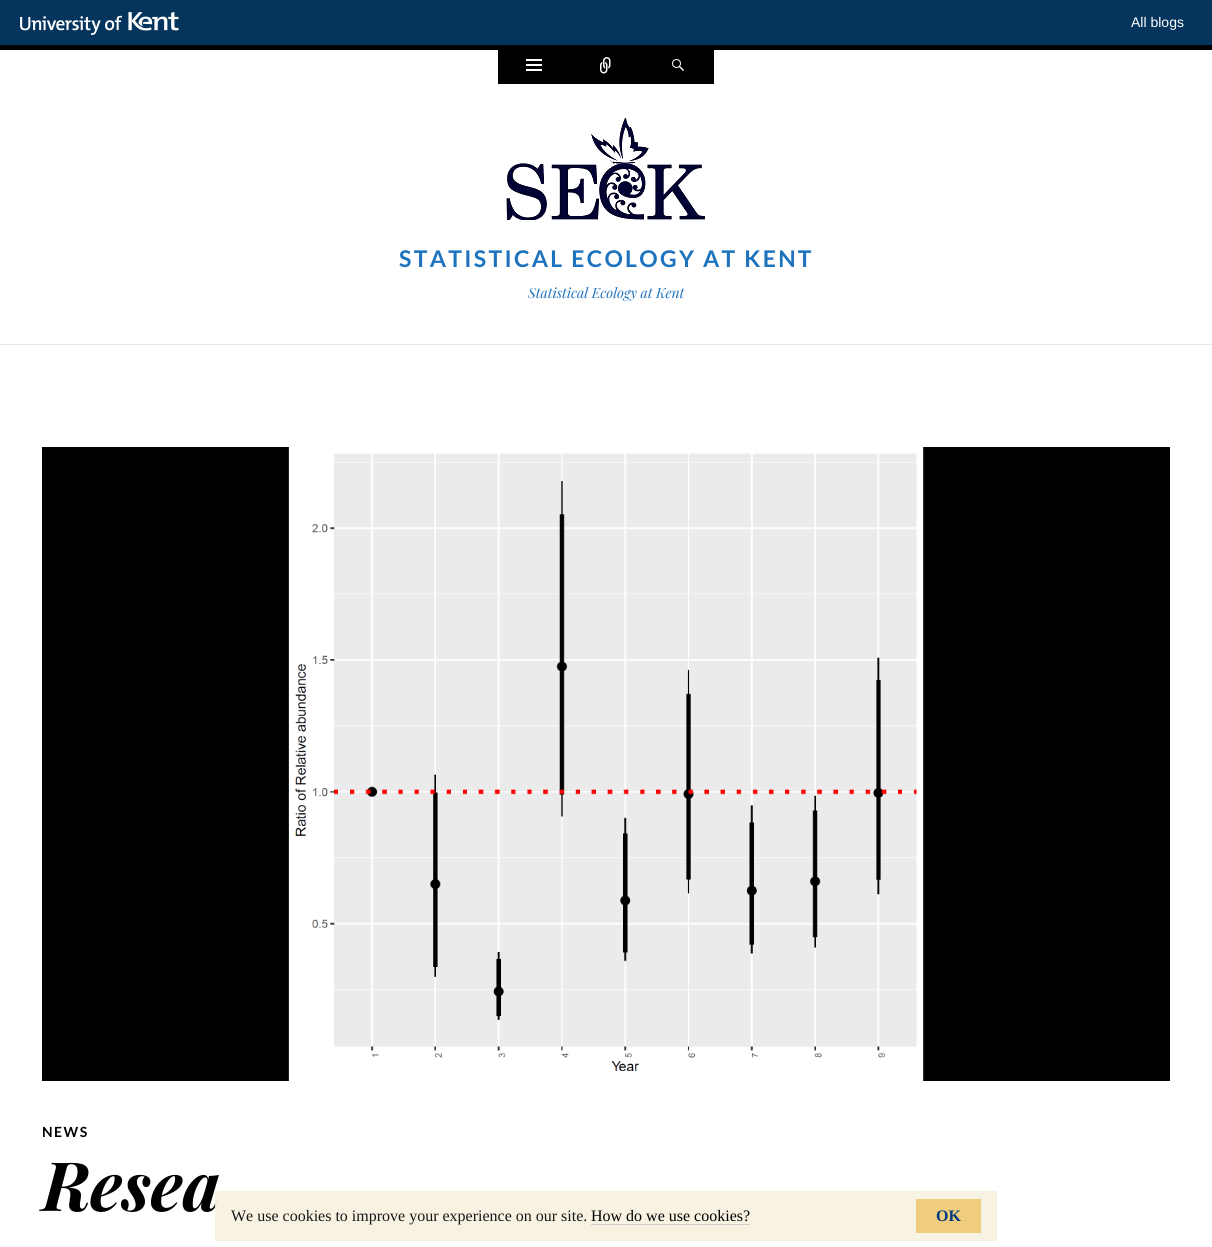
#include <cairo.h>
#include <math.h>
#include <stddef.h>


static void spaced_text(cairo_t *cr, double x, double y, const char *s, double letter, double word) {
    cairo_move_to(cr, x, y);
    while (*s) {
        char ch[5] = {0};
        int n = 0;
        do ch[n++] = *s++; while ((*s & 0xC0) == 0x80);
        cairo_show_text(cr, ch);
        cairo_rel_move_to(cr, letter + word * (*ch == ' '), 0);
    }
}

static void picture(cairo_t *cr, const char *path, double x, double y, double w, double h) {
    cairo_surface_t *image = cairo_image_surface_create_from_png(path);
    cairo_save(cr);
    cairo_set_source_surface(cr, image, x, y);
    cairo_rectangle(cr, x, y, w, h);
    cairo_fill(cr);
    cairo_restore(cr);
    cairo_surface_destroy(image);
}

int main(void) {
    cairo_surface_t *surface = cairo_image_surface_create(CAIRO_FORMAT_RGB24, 1212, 1247);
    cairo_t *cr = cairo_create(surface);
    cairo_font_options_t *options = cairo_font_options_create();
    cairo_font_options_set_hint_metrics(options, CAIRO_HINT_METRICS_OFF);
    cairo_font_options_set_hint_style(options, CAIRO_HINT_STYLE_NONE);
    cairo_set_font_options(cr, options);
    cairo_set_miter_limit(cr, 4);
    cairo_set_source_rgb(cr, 1, 1, 1);
    cairo_paint(cr);
    cairo_set_source_rgb(cr, 0.02, 0.204, 0.361);
    cairo_rectangle(cr, 0, 0, 1212, 45);
    cairo_fill(cr);
    picture(cr, "img1.png", 20, 12, 159, 23);
    cairo_select_font_face(cr, "Liberation Sans", CAIRO_FONT_SLANT_NORMAL, CAIRO_FONT_WEIGHT_NORMAL);
    cairo_set_font_size(cr, 14);
    cairo_set_source_rgb(cr, 1, 1, 1);
    cairo_move_to(cr, 1131, 27);
    cairo_show_text(cr, "All blogs");
    cairo_set_source_rgb(cr, 0, 0, 0);
    cairo_rectangle(cr, 0, 45, 1212, 5);
    cairo_fill(cr);
    cairo_rectangle(cr, 498, 50, 216, 34);
    cairo_fill(cr);
    picture(cr, "img2.png", 526, 59, 16, 12);
    picture(cr, "img3.png", 600, 57, 11, 17);
    picture(cr, "img4.png", 672, 59, 12, 12);
    cairo_set_source_rgb(cr, 0.902, 0.902, 0.902);
    cairo_rectangle(cr, 0, 344, 1212, 1);
    cairo_fill(cr);
    picture(cr, "img5.png", 506, 118, 199, 102);
    cairo_select_font_face(cr, "Lato", CAIRO_FONT_SLANT_NORMAL, CAIRO_FONT_WEIGHT_BOLD);
    cairo_set_font_size(cr, 23);
    cairo_set_source_rgb(cr, 0.118, 0.451, 0.745);
    spaced_text(cr, 399, 267, "STATISTICAL ECOLOGY AT KENT", 2.3, 0);
    cairo_select_font_face(cr, "Playfair Display", CAIRO_FONT_SLANT_ITALIC, CAIRO_FONT_WEIGHT_NORMAL);
    cairo_set_font_size(cr, 14);
    cairo_move_to(cr, 528, 298);
    cairo_show_text(cr, "Statistical Ecology at Kent");
    picture(cr, "img6.png", 42, 447, 1128, 634);
    cairo_select_font_face(cr, "Lato", CAIRO_FONT_SLANT_NORMAL, CAIRO_FONT_WEIGHT_BOLD);
    cairo_set_source_rgb(cr, 0, 0, 0);
    spaced_text(cr, 42, 1137, "NEWS", 1.5, 0);
    cairo_select_font_face(cr, "Playfair Display", CAIRO_FONT_SLANT_ITALIC, CAIRO_FONT_WEIGHT_BOLD);
    cairo_set_font_size(cr, 68);
    cairo_move_to(cr, 42, 1211);
    cairo_show_text(cr, "Resea");
    cairo_set_source_rgba(cr, 0.969, 0.949, 0.882, 0.95);
    cairo_rectangle(cr, 215, 1191, 782, 50);
    cairo_fill(cr);
    cairo_select_font_face(cr, "Liberation Serif", CAIRO_FONT_SLANT_NORMAL, CAIRO_FONT_WEIGHT_NORMAL);
    cairo_set_font_size(cr, 16);
    cairo_set_source_rgb(cr, 0.09, 0.09, 0.09);
    cairo_move_to(cr, 231, 1221);
    cairo_show_text(cr, "We use cookies to improve your experience on our site.");
    cairo_set_source_rgb(cr, 0, 0, 0);
    cairo_move_to(cr, 591, 1221);
    cairo_show_text(cr, "How do we use cookies?");
    cairo_set_source_rgb(cr, 0.8, 0.8, 0.8);
    cairo_rectangle(cr, 591, 1224, 159, 1);
    cairo_fill(cr);
    cairo_set_source_rgb(cr, 0.937, 0.804, 0.486);
    cairo_rectangle(cr, 916, 1199, 65, 34);
    cairo_fill(cr);
    cairo_select_font_face(cr, "Liberation Serif", CAIRO_FONT_SLANT_NORMAL, CAIRO_FONT_WEIGHT_BOLD);
    cairo_set_source_rgb(cr, 0, 0.22, 0.51);
    cairo_move_to(cr, 936, 1221);
    cairo_show_text(cr, "OK");
    cairo_surface_write_to_png(surface, "page.png");
    cairo_font_options_destroy(options);
    cairo_destroy(cr);
    cairo_surface_destroy(surface);
    return 0;
}
